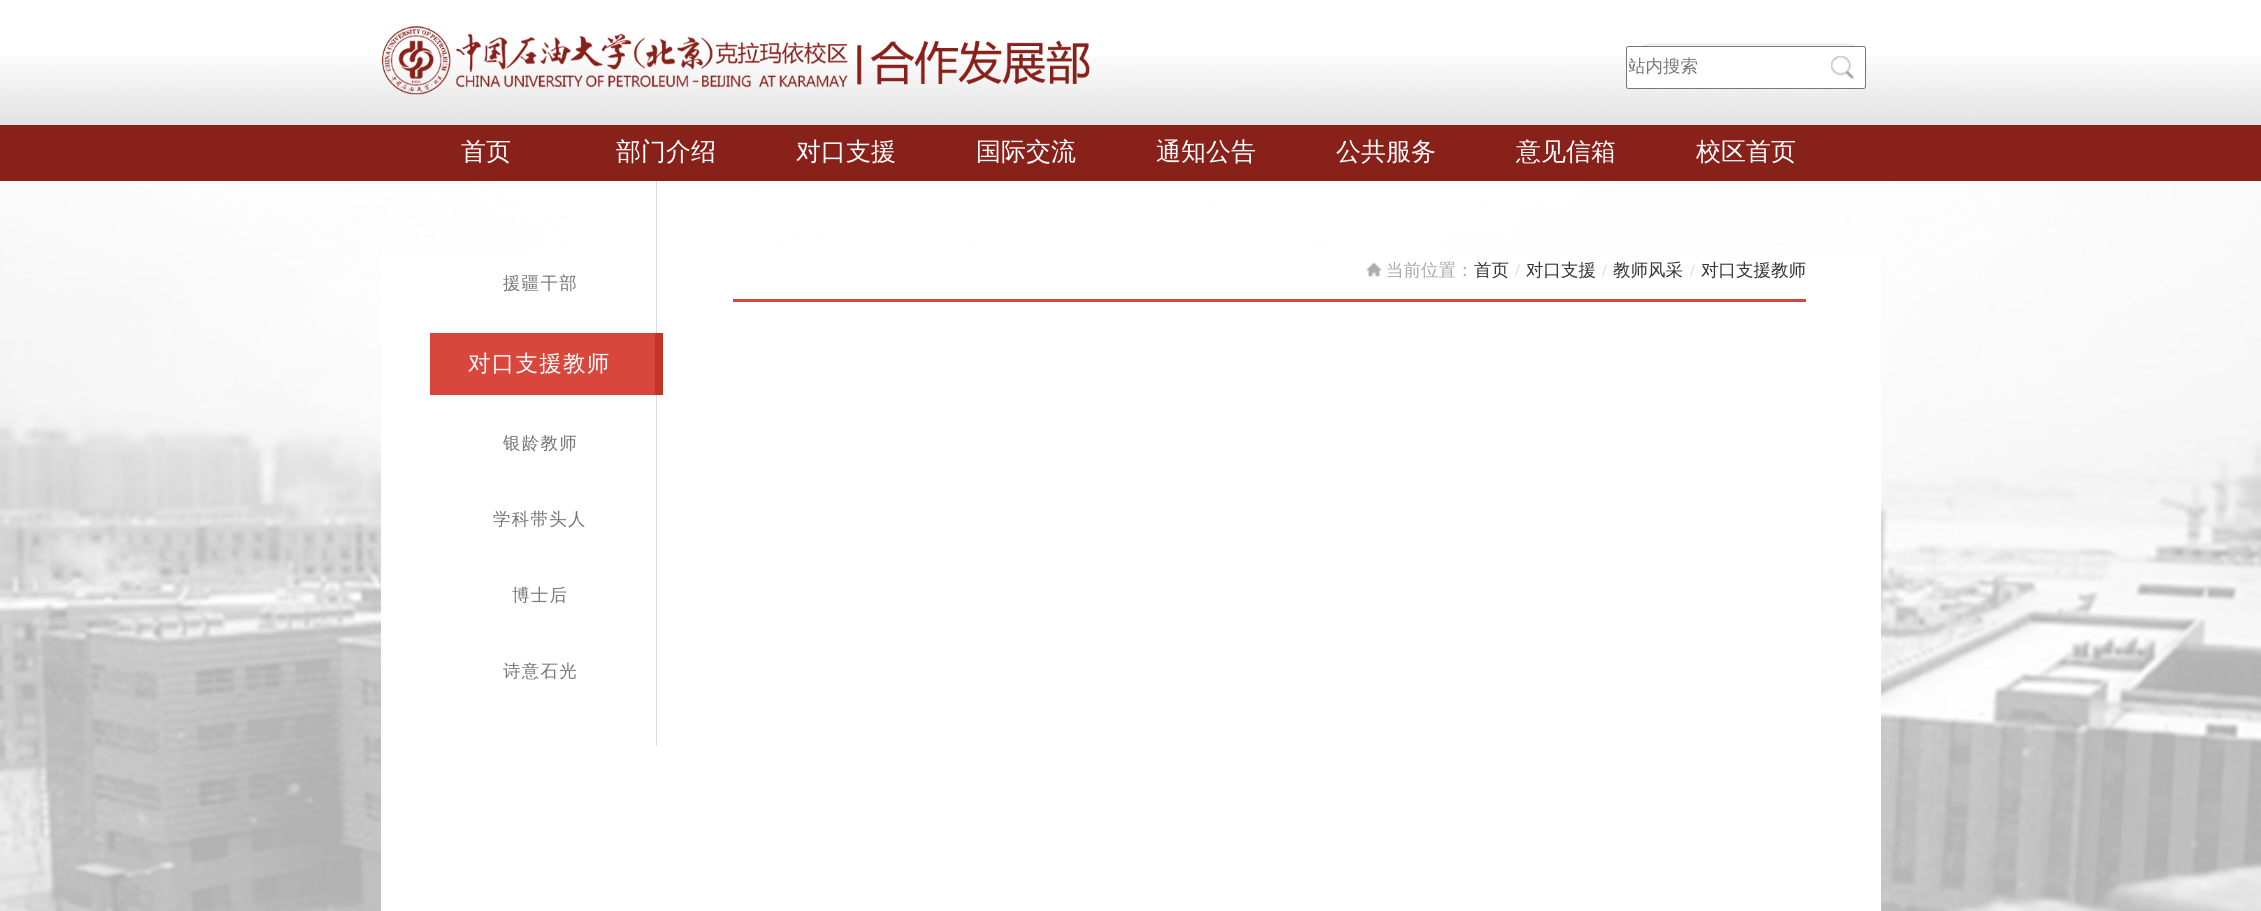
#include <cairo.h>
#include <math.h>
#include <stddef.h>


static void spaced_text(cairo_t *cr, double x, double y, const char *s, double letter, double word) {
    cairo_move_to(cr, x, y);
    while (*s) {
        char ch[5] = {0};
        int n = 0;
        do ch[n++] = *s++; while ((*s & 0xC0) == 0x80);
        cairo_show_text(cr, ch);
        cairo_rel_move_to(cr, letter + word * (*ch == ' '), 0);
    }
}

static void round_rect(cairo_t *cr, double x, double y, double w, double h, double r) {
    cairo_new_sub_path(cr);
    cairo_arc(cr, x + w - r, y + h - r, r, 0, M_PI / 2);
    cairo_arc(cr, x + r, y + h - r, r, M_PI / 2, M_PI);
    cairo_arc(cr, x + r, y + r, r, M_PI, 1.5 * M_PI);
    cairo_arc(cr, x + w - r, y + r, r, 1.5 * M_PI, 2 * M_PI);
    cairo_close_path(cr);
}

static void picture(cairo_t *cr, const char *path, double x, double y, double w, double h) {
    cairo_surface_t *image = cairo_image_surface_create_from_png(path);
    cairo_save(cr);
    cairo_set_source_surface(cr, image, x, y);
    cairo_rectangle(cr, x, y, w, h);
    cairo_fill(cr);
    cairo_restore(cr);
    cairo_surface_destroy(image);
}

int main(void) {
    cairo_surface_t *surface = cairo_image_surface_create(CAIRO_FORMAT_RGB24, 2261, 911);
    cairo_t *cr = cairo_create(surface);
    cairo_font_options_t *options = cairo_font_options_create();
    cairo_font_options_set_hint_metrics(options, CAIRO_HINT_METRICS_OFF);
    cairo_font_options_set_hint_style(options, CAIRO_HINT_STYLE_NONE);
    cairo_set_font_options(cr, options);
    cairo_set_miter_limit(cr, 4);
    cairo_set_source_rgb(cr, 1, 1, 1);
    cairo_paint(cr);
    picture(cr, "img1.png", 0, 56, 2261, 69);
    picture(cr, "img2.png", 382, 26, 708, 69);
    picture(cr, "img3.png", 1642, 43, 225, 30);
    cairo_set_source_rgb(cr, 1, 1, 1);
    round_rect(cr, 1626.5, 46.5, 239, 42, 2);
    cairo_fill_preserve(cr);
    cairo_set_source_rgb(cr, 0.463, 0.463, 0.463);
    cairo_set_line_width(cr, 1);
    cairo_stroke(cr);
    cairo_save(cr);
    cairo_rectangle(cr, 1629, 56, 207, 23);
    cairo_clip(cr);
    cairo_select_font_face(cr, "WenQuanYi Zen Hei Medium", CAIRO_FONT_SLANT_NORMAL, CAIRO_FONT_WEIGHT_NORMAL);
    cairo_set_font_size(cr, 17.5);
    cairo_set_source_rgb(cr, 0.459, 0.459, 0.459);
    cairo_move_to(cr, 1628, 72);
    cairo_show_text(cr, "站内搜索");
    cairo_restore(cr);
    picture(cr, "img4.png", 1831, 56, 23, 23);
    cairo_set_source_rgb(cr, 0.537, 0.129, 0.106);
    cairo_rectangle(cr, 0, 125, 2261, 56);
    cairo_fill(cr);
    cairo_select_font_face(cr, "WenQuanYi Zen Hei Medium", CAIRO_FONT_SLANT_NORMAL, CAIRO_FONT_WEIGHT_NORMAL);
    cairo_set_font_size(cr, 25);
    cairo_set_source_rgb(cr, 1, 1, 1);
    cairo_move_to(cr, 461, 160);
    cairo_show_text(cr, "首页");
    cairo_move_to(cr, 616, 160);
    cairo_show_text(cr, "部门介绍");
    cairo_move_to(cr, 796, 160);
    cairo_show_text(cr, "对口支援");
    cairo_move_to(cr, 976, 160);
    cairo_show_text(cr, "国际交流");
    cairo_move_to(cr, 1156, 160);
    cairo_show_text(cr, "通知公告");
    cairo_move_to(cr, 1336, 160);
    cairo_show_text(cr, "公共服务");
    cairo_move_to(cr, 1516, 160);
    cairo_show_text(cr, "意见信箱");
    cairo_move_to(cr, 1696, 160);
    cairo_show_text(cr, "校区首页");
    picture(cr, "img5.png", 0, 181, 2261, 730);
    cairo_rectangle(cr, 381, 250, 1500, 661);
    cairo_fill(cr);
    cairo_set_source_rgb(cr, 0.867, 0.867, 0.867);
    cairo_rectangle(cr, 656, 181, 1, 565);
    cairo_fill(cr);
    cairo_set_source_rgb(cr, 0.851, 0.278, 0.235);
    cairo_rectangle(cr, 733, 299, 1073, 3);
    cairo_fill(cr);
    picture(cr, "img6.png", 1366, 262, 16, 15);
    cairo_set_font_size(cr, 17.5);
    cairo_set_source_rgb(cr, 0.659, 0.659, 0.659);
    cairo_move_to(cr, 1386, 276);
    cairo_show_text(cr, "当前位置：");
    cairo_set_source_rgb(cr, 0.2, 0.2, 0.2);
    cairo_move_to(cr, 1474, 276);
    cairo_show_text(cr, "首页");
    cairo_select_font_face(cr, "Liberation Serif", CAIRO_FONT_SLANT_NORMAL, CAIRO_FONT_WEIGHT_NORMAL);
    cairo_set_source_rgb(cr, 0.8, 0.8, 0.8);
    cairo_move_to(cr, 1515, 276);
    cairo_show_text(cr, "/");
    cairo_select_font_face(cr, "WenQuanYi Zen Hei Medium", CAIRO_FONT_SLANT_NORMAL, CAIRO_FONT_WEIGHT_NORMAL);
    cairo_set_source_rgb(cr, 0.2, 0.2, 0.2);
    cairo_move_to(cr, 1526, 276);
    cairo_show_text(cr, "对口支援");
    cairo_select_font_face(cr, "Liberation Serif", CAIRO_FONT_SLANT_NORMAL, CAIRO_FONT_WEIGHT_NORMAL);
    cairo_set_source_rgb(cr, 0.8, 0.8, 0.8);
    cairo_move_to(cr, 1602, 276);
    cairo_show_text(cr, "/");
    cairo_select_font_face(cr, "WenQuanYi Zen Hei Medium", CAIRO_FONT_SLANT_NORMAL, CAIRO_FONT_WEIGHT_NORMAL);
    cairo_set_source_rgb(cr, 0.2, 0.2, 0.2);
    cairo_move_to(cr, 1613, 276);
    cairo_show_text(cr, "教师风采");
    cairo_select_font_face(cr, "Liberation Serif", CAIRO_FONT_SLANT_NORMAL, CAIRO_FONT_WEIGHT_NORMAL);
    cairo_set_source_rgb(cr, 0.8, 0.8, 0.8);
    cairo_move_to(cr, 1690, 276);
    cairo_show_text(cr, "/");
    cairo_select_font_face(cr, "WenQuanYi Zen Hei Medium", CAIRO_FONT_SLANT_NORMAL, CAIRO_FONT_WEIGHT_NORMAL);
    cairo_set_source_rgb(cr, 0.2, 0.2, 0.2);
    cairo_move_to(cr, 1701, 276);
    cairo_show_text(cr, "对口支援教师");
    cairo_set_source_rgb(cr, 0.459, 0.459, 0.459);
    spaced_text(cr, 503, 289, "援疆干部", 1.25, 0);
    cairo_set_source_rgb(cr, 0.851, 0.278, 0.235);
    cairo_rectangle(cr, 430, 333, 225, 62);
    cairo_fill(cr);
    cairo_set_source_rgb(cr, 0.761, 0.2, 0.157);
    cairo_rectangle(cr, 655, 333, 8, 62);
    cairo_fill(cr);
    cairo_set_font_size(cr, 22.5);
    cairo_set_source_rgb(cr, 1, 1, 1);
    spaced_text(cr, 468, 371, "对口支援教师", 1.25, 0);
    cairo_set_font_size(cr, 17.5);
    cairo_set_source_rgb(cr, 0.459, 0.459, 0.459);
    spaced_text(cr, 503, 449, "银龄教师", 1.25, 0);
    spaced_text(cr, 493, 525, "学科带头人", 1.25, 0);
    spaced_text(cr, 512, 601, "博士后", 1.25, 0);
    spaced_text(cr, 503, 677, "诗意石光", 1.25, 0);
    cairo_surface_write_to_png(surface, "page.png");
    cairo_font_options_destroy(options);
    cairo_destroy(cr);
    cairo_surface_destroy(surface);
    return 0;
}
